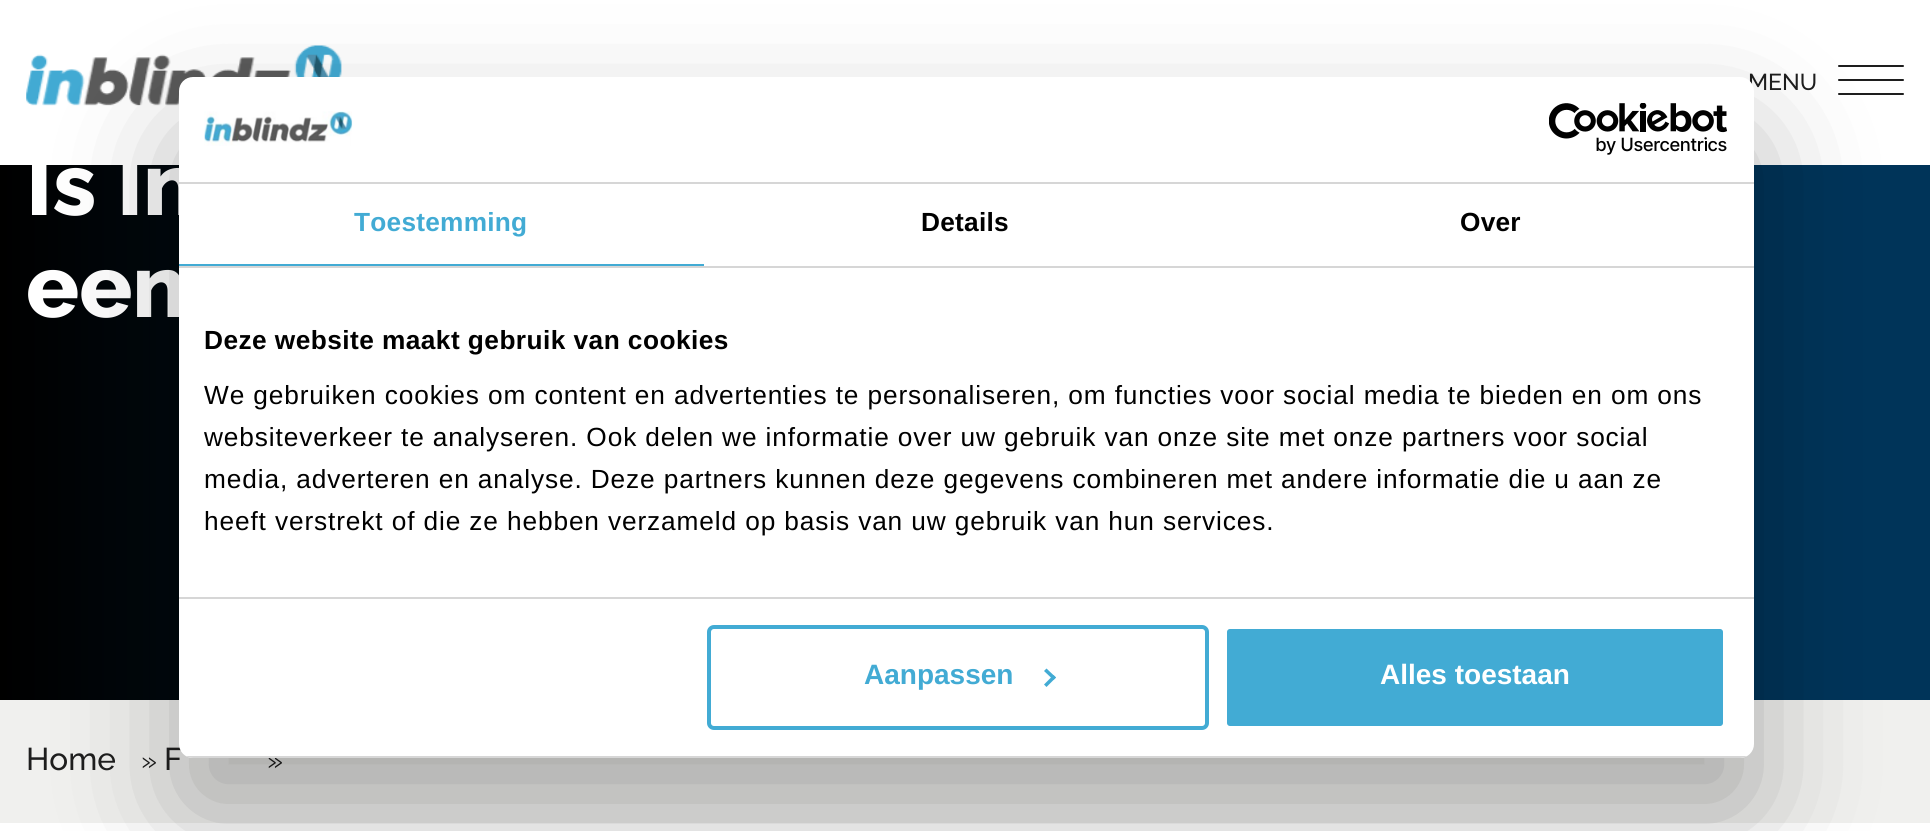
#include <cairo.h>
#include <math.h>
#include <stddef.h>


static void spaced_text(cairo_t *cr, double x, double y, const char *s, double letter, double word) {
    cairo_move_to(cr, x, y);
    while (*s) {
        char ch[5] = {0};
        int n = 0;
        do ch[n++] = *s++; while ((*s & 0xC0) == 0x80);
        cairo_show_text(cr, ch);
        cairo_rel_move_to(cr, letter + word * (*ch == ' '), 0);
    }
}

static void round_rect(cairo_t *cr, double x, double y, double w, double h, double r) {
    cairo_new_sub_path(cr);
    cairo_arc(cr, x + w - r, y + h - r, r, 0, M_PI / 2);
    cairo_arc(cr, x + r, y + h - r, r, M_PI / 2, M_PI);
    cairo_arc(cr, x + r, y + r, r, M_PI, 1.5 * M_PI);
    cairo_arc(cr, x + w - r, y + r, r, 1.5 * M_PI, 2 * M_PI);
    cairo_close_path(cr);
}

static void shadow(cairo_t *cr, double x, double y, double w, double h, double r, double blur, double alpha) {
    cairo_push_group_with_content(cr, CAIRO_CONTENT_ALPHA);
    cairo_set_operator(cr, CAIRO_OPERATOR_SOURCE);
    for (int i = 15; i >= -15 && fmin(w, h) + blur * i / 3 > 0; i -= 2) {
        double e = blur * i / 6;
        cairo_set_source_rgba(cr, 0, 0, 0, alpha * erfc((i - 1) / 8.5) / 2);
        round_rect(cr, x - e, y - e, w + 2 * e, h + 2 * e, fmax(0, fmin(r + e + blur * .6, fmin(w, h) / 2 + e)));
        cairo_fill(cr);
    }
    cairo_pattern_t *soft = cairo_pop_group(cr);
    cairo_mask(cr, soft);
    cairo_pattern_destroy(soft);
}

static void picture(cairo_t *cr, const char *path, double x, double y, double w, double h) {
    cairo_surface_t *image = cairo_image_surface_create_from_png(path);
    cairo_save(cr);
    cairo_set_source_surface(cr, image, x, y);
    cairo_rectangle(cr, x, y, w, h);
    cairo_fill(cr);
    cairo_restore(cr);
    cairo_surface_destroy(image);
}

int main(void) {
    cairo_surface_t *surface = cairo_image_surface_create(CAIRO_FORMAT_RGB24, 1930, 831);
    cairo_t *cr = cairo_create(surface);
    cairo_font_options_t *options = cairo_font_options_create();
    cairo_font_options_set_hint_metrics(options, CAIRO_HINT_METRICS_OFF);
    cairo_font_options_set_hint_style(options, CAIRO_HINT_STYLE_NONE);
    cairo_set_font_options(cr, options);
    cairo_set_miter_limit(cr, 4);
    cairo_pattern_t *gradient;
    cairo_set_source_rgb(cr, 1, 1, 1);
    cairo_paint(cr);
    picture(cr, "img1.png", 26, 45, 316, 61);
    cairo_select_font_face(cr, "Raleway Medium", CAIRO_FONT_SLANT_NORMAL, CAIRO_FONT_WEIGHT_NORMAL);
    cairo_set_font_size(cr, 23);
    cairo_set_source_rgb(cr, 0.118, 0.118, 0.118);
    cairo_move_to(cr, 1748, 90);
    cairo_show_text(cr, "MENU");
    round_rect(cr, 1838, 65, 66, 2, 1);
    cairo_fill(cr);
    round_rect(cr, 1838, 79, 66, 2, 1);
    cairo_fill(cr);
    round_rect(cr, 1838, 93, 66, 2, 1);
    cairo_fill(cr);
    cairo_set_source_rgb(cr, 0, 0.204, 0.349);
    cairo_rectangle(cr, 1754, 165, 176, 535);
    cairo_fill(cr);
    gradient = cairo_pattern_create_linear(0, 254, 1197, 254);
    cairo_pattern_add_color_stop_rgba(gradient, 0, 0, 0, 0, 1);
    cairo_pattern_add_color_stop_rgba(gradient, 1, 0, 0.204, 0.345, 1);
    cairo_set_source(cr, gradient);
    cairo_pattern_destroy(gradient);
    cairo_rectangle(cr, 0, 165, 179, 535);
    cairo_fill(cr);
    cairo_select_font_face(cr, "Raleway ExtraBold", CAIRO_FONT_SLANT_NORMAL, CAIRO_FONT_WEIGHT_NORMAL);
    cairo_set_font_size(cr, 88);
    cairo_set_source_rgb(cr, 1, 1, 1);
    cairo_move_to(cr, 26, 215);
    cairo_show_text(cr, "Is In");
    cairo_move_to(cr, 26, 317);
    cairo_show_text(cr, "een");
    cairo_set_source_rgb(cr, 0.941, 0.941, 0.933);
    cairo_rectangle(cr, 0, 700, 1930, 123);
    cairo_fill(cr);
    cairo_select_font_face(cr, "Raleway Medium", CAIRO_FONT_SLANT_NORMAL, CAIRO_FONT_WEIGHT_NORMAL);
    cairo_set_font_size(cr, 31.5);
    cairo_set_source_rgb(cr, 0.118, 0.118, 0.118);
    cairo_move_to(cr, 26, 770);
    cairo_show_text(cr, "Home");
    cairo_select_font_face(cr, "Raleway", CAIRO_FONT_SLANT_NORMAL, CAIRO_FONT_WEIGHT_NORMAL);
    cairo_set_font_size(cr, 28);
    cairo_move_to(cr, 141, 770);
    cairo_show_text(cr, "»");
    cairo_select_font_face(cr, "Raleway Medium", CAIRO_FONT_SLANT_NORMAL, CAIRO_FONT_WEIGHT_NORMAL);
    cairo_set_font_size(cr, 31.5);
    cairo_move_to(cr, 164, 770);
    cairo_show_text(cr, "F");
    cairo_select_font_face(cr, "Raleway", CAIRO_FONT_SLANT_NORMAL, CAIRO_FONT_WEIGHT_NORMAL);
    cairo_set_font_size(cr, 28);
    cairo_move_to(cr, 267, 770);
    cairo_show_text(cr, "»");
    cairo_set_source_rgb(cr, 0, 0, 0);
    shadow(cr, 179, 133, 1575, 681, 14, 59.5, 0.3);
    cairo_set_source_rgb(cr, 1, 1, 1);
    round_rect(cr, 179, 77, 1575, 681, 14);
    cairo_fill(cr);
    cairo_set_source_rgb(cr, 0.839, 0.839, 0.839);
    cairo_rectangle(cr, 179, 182, 1575, 2);
    cairo_fill(cr);
    picture(cr, "img2.png", 204, 111, 149, 35);
    picture(cr, "img3.png", 1549, 103, 178, 52);
    cairo_rectangle(cr, 179, 266, 1575, 2);
    cairo_fill(cr);
    cairo_set_source_rgb(cr, 0.259, 0.671, 0.831);
    cairo_rectangle(cr, 179, 264, 525, 2);
    cairo_fill(cr);
    cairo_select_font_face(cr, "Liberation Sans", CAIRO_FONT_SLANT_NORMAL, CAIRO_FONT_WEIGHT_BOLD);
    cairo_set_font_size(cr, 26.25);
    spaced_text(cr, 354, 231, "Toestemming", 0.25, 0);
    cairo_set_source_rgb(cr, 0, 0, 0);
    spaced_text(cr, 921, 231, "Details", 0.25, 0);
    spaced_text(cr, 1460, 231, "Over", 0.25, 0);
    cairo_set_source_rgb(cr, 0.839, 0.839, 0.839);
    cairo_rectangle(cr, 179, 597, 1575, 2);
    cairo_fill(cr);
    cairo_set_source_rgb(cr, 0, 0, 0);
    spaced_text(cr, 204, 349, "Deze website maakt gebruik van cookies", 0.45, 0);
    cairo_select_font_face(cr, "Liberation Sans", CAIRO_FONT_SLANT_NORMAL, CAIRO_FONT_WEIGHT_NORMAL);
    spaced_text(cr, 204, 404, "We gebruiken cookies om content en advertenties te personaliseren, om functies voor social media te bieden en om ons", 0.88, 0);
    spaced_text(cr, 204, 446, "websiteverkeer te analyseren. Ook delen we informatie over uw gebruik van onze site met onze partners voor social", 0.88, 0);
    spaced_text(cr, 204, 488, "media, adverteren en analyse. Deze partners kunnen deze gegevens combineren met andere informatie die u aan ze", 0.88, 0);
    spaced_text(cr, 204, 530, "heeft verstrekt of die ze hebben verzameld op basis van uw gebruik van hun services.", 0.88, 0);
    cairo_save(cr);
    round_rect(cr, 179, 77, 1575, 681, 14);
    cairo_clip(cr);
    cairo_set_source_rgb(cr, 0.839, 0.839, 0.839);
    cairo_rectangle(cr, 179, 756, 1575, 2);
    cairo_fill(cr);
    cairo_restore(cr);
    round_rect(cr, 709, 627, 498, 101, 5);
    cairo_set_source_rgb(cr, 0.259, 0.671, 0.831);
    cairo_set_line_width(cr, 4);
    cairo_stroke(cr);
    cairo_select_font_face(cr, "Liberation Sans", CAIRO_FONT_SLANT_NORMAL, CAIRO_FONT_WEIGHT_BOLD);
    cairo_set_font_size(cr, 28);
    cairo_move_to(cr, 864, 684);
    cairo_show_text(cr, "Aanpassen");
    cairo_new_path(cr);
    cairo_move_to(cr, 1046.5, 668.5);
    cairo_line_to(cr, 1056, 677.5);
    cairo_line_to(cr, 1053.5, 680);
    cairo_line_to(cr, 1044, 671);
    cairo_close_path(cr);
    cairo_fill(cr);
    cairo_new_path(cr);
    cairo_move_to(cr, 1053.5, 675);
    cairo_line_to(cr, 1056, 677.5);
    cairo_line_to(cr, 1046.5, 687);
    cairo_line_to(cr, 1044, 684.5);
    cairo_close_path(cr);
    cairo_fill(cr);
    round_rect(cr, 1225, 627, 500, 101, 5);
    cairo_fill_preserve(cr);
    cairo_set_source_rgb(cr, 1, 1, 1);
    cairo_stroke(cr);
    cairo_move_to(cr, 1380, 684);
    cairo_show_text(cr, "Alles toestaan");
    cairo_surface_write_to_png(surface, "page.png");
    cairo_font_options_destroy(options);
    cairo_destroy(cr);
    cairo_surface_destroy(surface);
    return 0;
}
